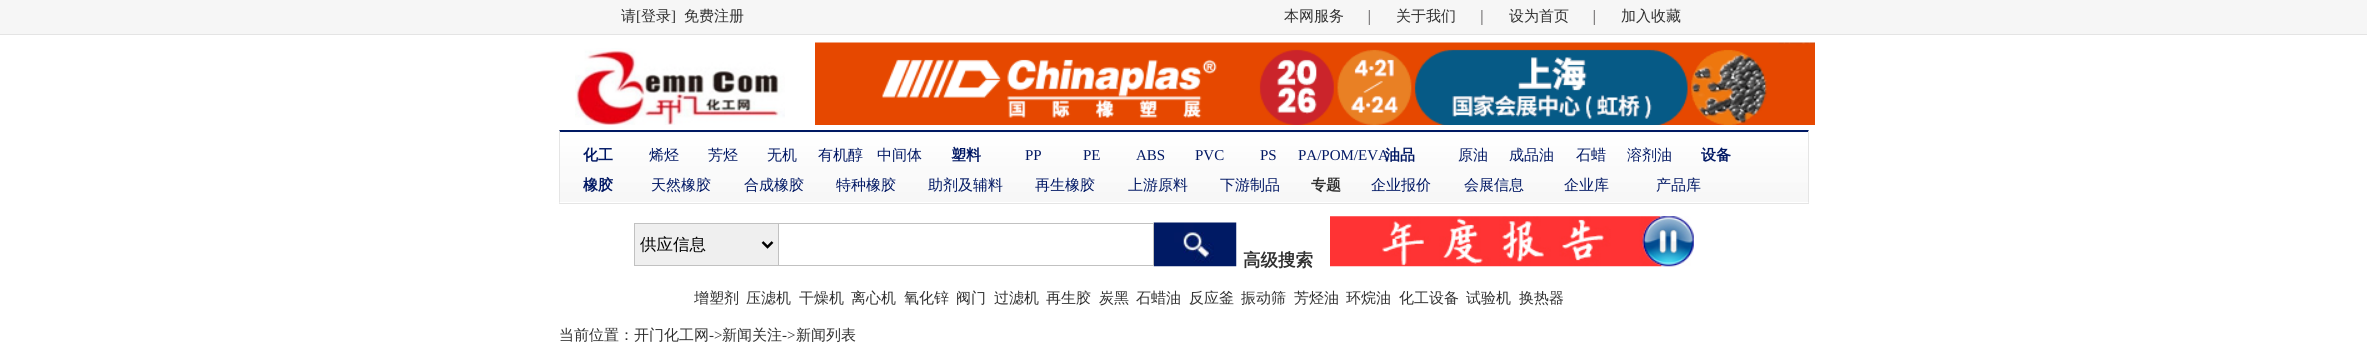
#include <cairo.h>
#include <math.h>
#include <stddef.h>


static void picture(cairo_t *cr, const char *path, double x, double y, double w, double h) {
    cairo_surface_t *image = cairo_image_surface_create_from_png(path);
    cairo_save(cr);
    cairo_set_source_surface(cr, image, x, y);
    cairo_rectangle(cr, x, y, w, h);
    cairo_fill(cr);
    cairo_restore(cr);
    cairo_surface_destroy(image);
}

int main(void) {
    cairo_surface_t *surface = cairo_image_surface_create(CAIRO_FORMAT_RGB24, 2367, 355);
    cairo_t *cr = cairo_create(surface);
    cairo_font_options_t *options = cairo_font_options_create();
    cairo_font_options_set_hint_metrics(options, CAIRO_HINT_METRICS_OFF);
    cairo_font_options_set_hint_style(options, CAIRO_HINT_STYLE_NONE);
    cairo_set_font_options(cr, options);
    cairo_set_miter_limit(cr, 4);
    cairo_set_source_rgb(cr, 1, 1, 1);
    cairo_paint(cr);
    cairo_set_source_rgb(cr, 0.961, 0.961, 0.961);
    cairo_rectangle(cr, 0, 0, 2367, 34);
    cairo_fill(cr);
    cairo_set_source_rgb(cr, 0.894, 0.894, 0.894);
    cairo_rectangle(cr, 0, 34, 2367, 1);
    cairo_fill(cr);
    cairo_select_font_face(cr, "WenQuanYi Zen Hei Medium", CAIRO_FONT_SLANT_NORMAL, CAIRO_FONT_WEIGHT_NORMAL);
    cairo_set_font_size(cr, 15);
    cairo_set_source_rgb(cr, 0.188, 0.188, 0.188);
    cairo_move_to(cr, 621, 21);
    cairo_show_text(cr, "请");
    cairo_select_font_face(cr, "Liberation Serif", CAIRO_FONT_SLANT_NORMAL, CAIRO_FONT_WEIGHT_NORMAL);
    cairo_move_to(cr, 636, 21);
    cairo_show_text(cr, "[");
    cairo_select_font_face(cr, "WenQuanYi Zen Hei Medium", CAIRO_FONT_SLANT_NORMAL, CAIRO_FONT_WEIGHT_NORMAL);
    cairo_move_to(cr, 641, 21);
    cairo_show_text(cr, "登录");
    cairo_select_font_face(cr, "Liberation Serif", CAIRO_FONT_SLANT_NORMAL, CAIRO_FONT_WEIGHT_NORMAL);
    cairo_move_to(cr, 671, 21);
    cairo_show_text(cr, "]");
    cairo_select_font_face(cr, "WenQuanYi Zen Hei Medium", CAIRO_FONT_SLANT_NORMAL, CAIRO_FONT_WEIGHT_NORMAL);
    cairo_move_to(cr, 684, 21);
    cairo_show_text(cr, "免费注册");
    picture(cr, "img1.png", 1368, 10, 2, 15);
    cairo_move_to(cr, 1284, 21);
    cairo_show_text(cr, "本网服务");
    picture(cr, "img2.png", 1481, 10, 2, 15);
    cairo_move_to(cr, 1396, 21);
    cairo_show_text(cr, "关于我们");
    picture(cr, "img1.png", 1593, 10, 2, 15);
    cairo_move_to(cr, 1509, 21);
    cairo_show_text(cr, "设为首页");
    cairo_move_to(cr, 1621, 21);
    cairo_show_text(cr, "加入收藏");
    picture(cr, "img3.png", 575, 48, 210, 77);
    picture(cr, "img4.png", 815, 42, 1000, 83);
    picture(cr, "img5.png", 559, 130, 1250, 72);
    cairo_set_source_rgb(cr, 0, 0.098, 0.388);
    cairo_new_path(cr);
    cairo_move_to(cr, 559, 130);
    cairo_line_to(cr, 1809, 130);
    cairo_line_to(cr, 1808, 132);
    cairo_line_to(cr, 560, 132);
    cairo_close_path(cr);
    cairo_fill(cr);
    cairo_set_source_rgb(cr, 0.898, 0.898, 0.898);
    cairo_new_path(cr);
    cairo_move_to(cr, 1809, 130);
    cairo_line_to(cr, 1809, 204);
    cairo_line_to(cr, 1808, 202);
    cairo_line_to(cr, 1808, 132);
    cairo_close_path(cr);
    cairo_fill(cr);
    cairo_rectangle(cr, 559, 203, 1250, 1);
    cairo_fill(cr);
    cairo_new_path(cr);
    cairo_move_to(cr, 559, 204);
    cairo_line_to(cr, 559, 130);
    cairo_line_to(cr, 560, 132);
    cairo_line_to(cr, 560, 202);
    cairo_close_path(cr);
    cairo_fill(cr);
    cairo_select_font_face(cr, "WenQuanYi Zen Hei", CAIRO_FONT_SLANT_NORMAL, CAIRO_FONT_WEIGHT_BOLD);
    cairo_set_source_rgb(cr, 0.004, 0.094, 0.392);
    cairo_move_to(cr, 583, 160);
    cairo_show_text(cr, "化工");
    cairo_select_font_face(cr, "WenQuanYi Zen Hei Medium", CAIRO_FONT_SLANT_NORMAL, CAIRO_FONT_WEIGHT_NORMAL);
    cairo_move_to(cr, 649, 160);
    cairo_show_text(cr, "烯烃");
    cairo_move_to(cr, 708, 160);
    cairo_show_text(cr, "芳烃");
    cairo_move_to(cr, 767, 160);
    cairo_show_text(cr, "无机");
    cairo_move_to(cr, 818, 160);
    cairo_show_text(cr, "有机醇");
    cairo_move_to(cr, 877, 160);
    cairo_show_text(cr, "中间体");
    cairo_select_font_face(cr, "WenQuanYi Zen Hei", CAIRO_FONT_SLANT_NORMAL, CAIRO_FONT_WEIGHT_BOLD);
    cairo_move_to(cr, 951, 160);
    cairo_show_text(cr, "塑料");
    cairo_select_font_face(cr, "Liberation Serif", CAIRO_FONT_SLANT_NORMAL, CAIRO_FONT_WEIGHT_NORMAL);
    cairo_move_to(cr, 1025, 160);
    cairo_show_text(cr, "PP");
    cairo_move_to(cr, 1083, 160);
    cairo_show_text(cr, "PE");
    cairo_move_to(cr, 1136, 160);
    cairo_show_text(cr, "ABS");
    cairo_move_to(cr, 1195, 160);
    cairo_show_text(cr, "PVC");
    cairo_move_to(cr, 1260, 160);
    cairo_show_text(cr, "PS");
    cairo_move_to(cr, 1298, 160);
    cairo_show_text(cr, "PA/POM/EVA");
    cairo_select_font_face(cr, "WenQuanYi Zen Hei", CAIRO_FONT_SLANT_NORMAL, CAIRO_FONT_WEIGHT_BOLD);
    cairo_move_to(cr, 1385, 160);
    cairo_show_text(cr, "油品");
    cairo_select_font_face(cr, "WenQuanYi Zen Hei Medium", CAIRO_FONT_SLANT_NORMAL, CAIRO_FONT_WEIGHT_NORMAL);
    cairo_move_to(cr, 1458, 160);
    cairo_show_text(cr, "原油");
    cairo_move_to(cr, 1509, 160);
    cairo_show_text(cr, "成品油");
    cairo_move_to(cr, 1576, 160);
    cairo_show_text(cr, "石蜡");
    cairo_move_to(cr, 1627, 160);
    cairo_show_text(cr, "溶剂油");
    cairo_select_font_face(cr, "WenQuanYi Zen Hei", CAIRO_FONT_SLANT_NORMAL, CAIRO_FONT_WEIGHT_BOLD);
    cairo_move_to(cr, 1701, 160);
    cairo_show_text(cr, "设备");
    cairo_move_to(cr, 583, 190);
    cairo_show_text(cr, "橡胶");
    cairo_select_font_face(cr, "WenQuanYi Zen Hei Medium", CAIRO_FONT_SLANT_NORMAL, CAIRO_FONT_WEIGHT_NORMAL);
    cairo_move_to(cr, 651, 190);
    cairo_show_text(cr, "天然橡胶");
    cairo_move_to(cr, 744, 190);
    cairo_show_text(cr, "合成橡胶");
    cairo_move_to(cr, 836, 190);
    cairo_show_text(cr, "特种橡胶");
    cairo_move_to(cr, 928, 190);
    cairo_show_text(cr, "助剂及辅料");
    cairo_move_to(cr, 1035, 190);
    cairo_show_text(cr, "再生橡胶");
    cairo_move_to(cr, 1128, 190);
    cairo_show_text(cr, "上游原料");
    cairo_move_to(cr, 1220, 190);
    cairo_show_text(cr, "下游制品");
    cairo_select_font_face(cr, "WenQuanYi Zen Hei", CAIRO_FONT_SLANT_NORMAL, CAIRO_FONT_WEIGHT_BOLD);
    cairo_set_source_rgb(cr, 0.188, 0.188, 0.188);
    cairo_move_to(cr, 1311, 190);
    cairo_show_text(cr, "专题");
    cairo_select_font_face(cr, "WenQuanYi Zen Hei Medium", CAIRO_FONT_SLANT_NORMAL, CAIRO_FONT_WEIGHT_NORMAL);
    cairo_set_source_rgb(cr, 0.004, 0.094, 0.392);
    cairo_move_to(cr, 1371, 190);
    cairo_show_text(cr, "企业报价");
    cairo_move_to(cr, 1464, 190);
    cairo_show_text(cr, "会展信息");
    cairo_move_to(cr, 1564, 190);
    cairo_show_text(cr, "企业库");
    cairo_move_to(cr, 1656, 190);
    cairo_show_text(cr, "产品库");
    picture(cr, "img6.png", 1153, 222, 84, 45);
    cairo_rectangle(cr, 634.5, 223.5, 519, 42);
    cairo_set_source_rgb(cr, 0.757, 0.757, 0.757);
    cairo_set_line_width(cr, 1);
    cairo_stroke(cr);
    cairo_rectangle(cr, 778, 224, 1, 41);
    cairo_fill(cr);
    cairo_set_source_rgb(cr, 0.937, 0.937, 0.937);
    cairo_rectangle(cr, 635, 224, 143, 41);
    cairo_fill(cr);
    cairo_new_path(cr);
    cairo_move_to(cr, 762.5, 242);
    cairo_line_to(cr, 767.5, 247);
    cairo_line_to(cr, 772.5, 242);
    cairo_set_source_rgb(cr, 0, 0, 0);
    cairo_set_line_width(cr, 2.5);
    cairo_stroke(cr);
    cairo_set_font_size(cr, 16.5);
    cairo_move_to(cr, 640, 250);
    cairo_show_text(cr, "供应信息");
    cairo_select_font_face(cr, "WenQuanYi Zen Hei", CAIRO_FONT_SLANT_NORMAL, CAIRO_FONT_WEIGHT_BOLD);
    cairo_set_font_size(cr, 17.5);
    cairo_set_source_rgb(cr, 0.188, 0.188, 0.188);
    cairo_move_to(cr, 1243, 266);
    cairo_show_text(cr, "高级搜索");
    picture(cr, "img7.png", 1330, 216, 364, 51);
    cairo_select_font_face(cr, "WenQuanYi Zen Hei Medium", CAIRO_FONT_SLANT_NORMAL, CAIRO_FONT_WEIGHT_NORMAL);
    cairo_set_font_size(cr, 15);
    cairo_move_to(cr, 694, 303);
    cairo_show_text(cr, "增塑剂");
    cairo_move_to(cr, 746, 303);
    cairo_show_text(cr, "压滤机");
    cairo_move_to(cr, 799, 303);
    cairo_show_text(cr, "干燥机");
    cairo_move_to(cr, 851, 303);
    cairo_show_text(cr, "离心机");
    cairo_move_to(cr, 904, 303);
    cairo_show_text(cr, "氧化锌");
    cairo_move_to(cr, 956, 303);
    cairo_show_text(cr, "阀门");
    cairo_move_to(cr, 994, 303);
    cairo_show_text(cr, "过滤机");
    cairo_move_to(cr, 1046, 303);
    cairo_show_text(cr, "再生胶");
    cairo_move_to(cr, 1099, 303);
    cairo_show_text(cr, "炭黑");
    cairo_move_to(cr, 1136, 303);
    cairo_show_text(cr, "石蜡油");
    cairo_move_to(cr, 1189, 303);
    cairo_show_text(cr, "反应釜");
    cairo_move_to(cr, 1241, 303);
    cairo_show_text(cr, "振动筛");
    cairo_move_to(cr, 1294, 303);
    cairo_show_text(cr, "芳烃油");
    cairo_move_to(cr, 1346, 303);
    cairo_show_text(cr, "环烷油");
    cairo_move_to(cr, 1399, 303);
    cairo_show_text(cr, "化工设备");
    cairo_move_to(cr, 1466, 303);
    cairo_show_text(cr, "试验机");
    cairo_move_to(cr, 1519, 303);
    cairo_show_text(cr, "换热器");
    cairo_move_to(cr, 559, 340);
    cairo_show_text(cr, "当前位置：开门化工网");
    cairo_select_font_face(cr, "Liberation Serif", CAIRO_FONT_SLANT_NORMAL, CAIRO_FONT_WEIGHT_NORMAL);
    cairo_move_to(cr, 709, 340);
    cairo_show_text(cr, "->");
    cairo_select_font_face(cr, "WenQuanYi Zen Hei Medium", CAIRO_FONT_SLANT_NORMAL, CAIRO_FONT_WEIGHT_NORMAL);
    cairo_move_to(cr, 722, 340);
    cairo_show_text(cr, "新闻关注");
    cairo_select_font_face(cr, "Liberation Serif", CAIRO_FONT_SLANT_NORMAL, CAIRO_FONT_WEIGHT_NORMAL);
    cairo_move_to(cr, 782, 340);
    cairo_show_text(cr, "->");
    cairo_select_font_face(cr, "WenQuanYi Zen Hei Medium", CAIRO_FONT_SLANT_NORMAL, CAIRO_FONT_WEIGHT_NORMAL);
    cairo_move_to(cr, 796, 340);
    cairo_show_text(cr, "新闻列表");
    cairo_surface_write_to_png(surface, "page.png");
    cairo_font_options_destroy(options);
    cairo_destroy(cr);
    cairo_surface_destroy(surface);
    return 0;
}
